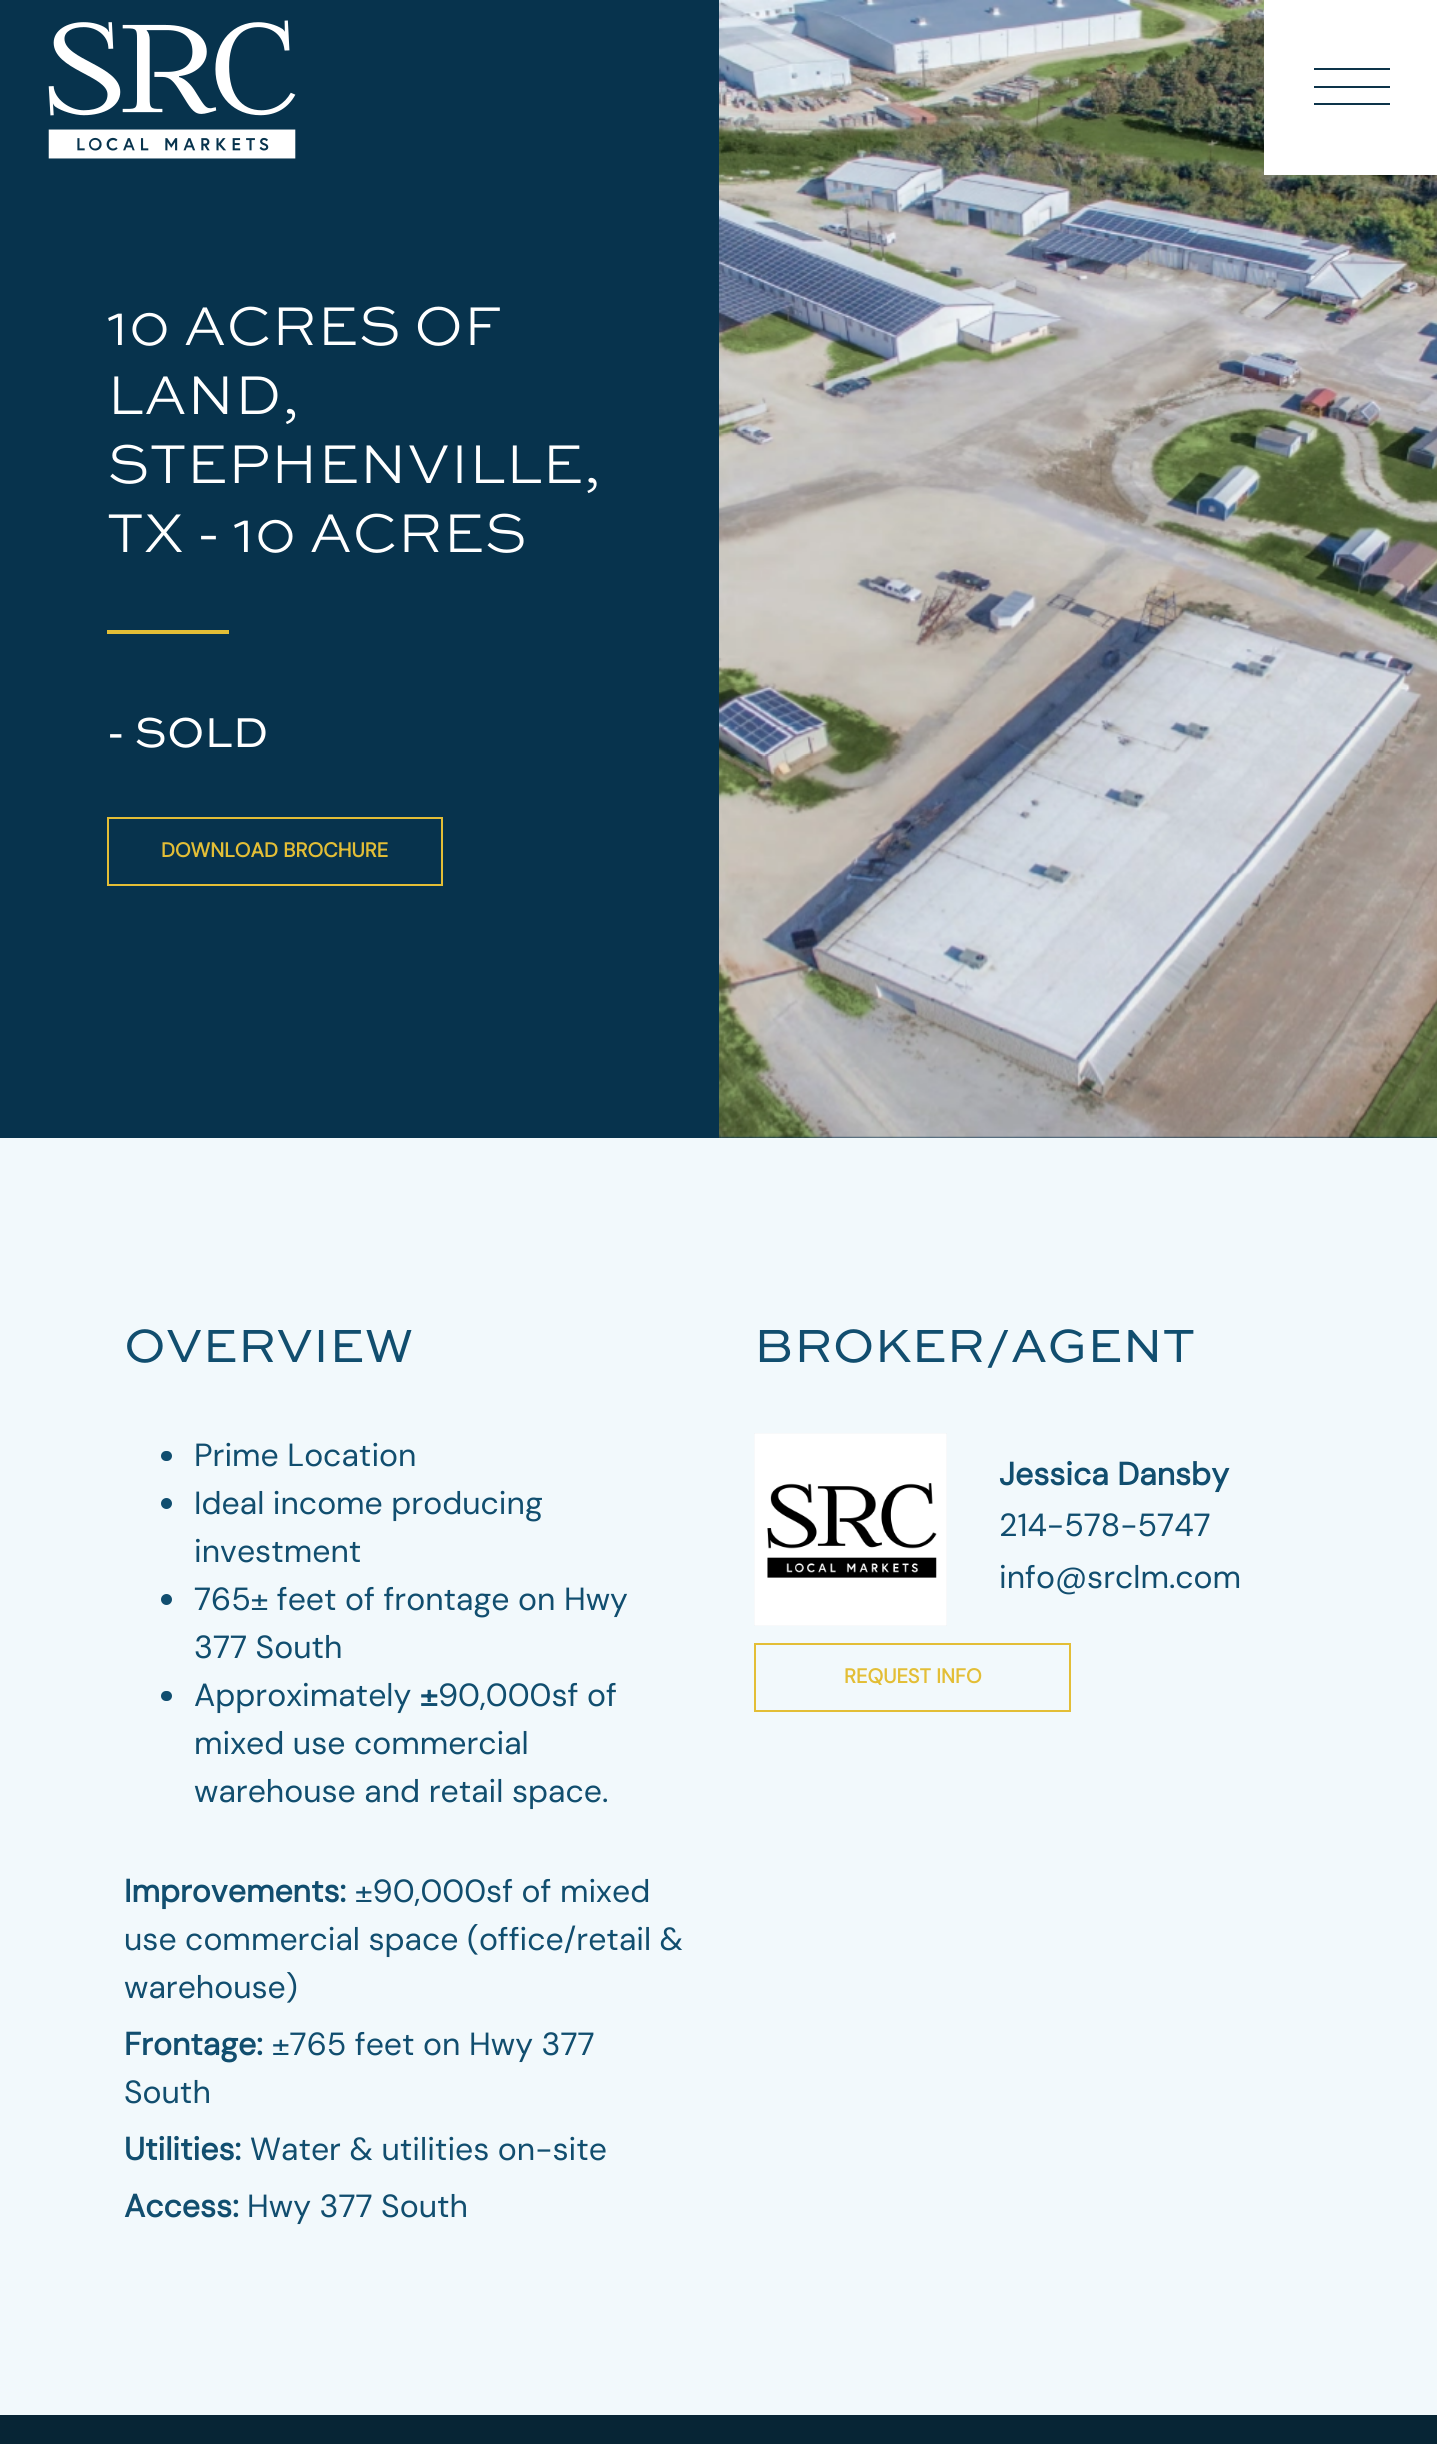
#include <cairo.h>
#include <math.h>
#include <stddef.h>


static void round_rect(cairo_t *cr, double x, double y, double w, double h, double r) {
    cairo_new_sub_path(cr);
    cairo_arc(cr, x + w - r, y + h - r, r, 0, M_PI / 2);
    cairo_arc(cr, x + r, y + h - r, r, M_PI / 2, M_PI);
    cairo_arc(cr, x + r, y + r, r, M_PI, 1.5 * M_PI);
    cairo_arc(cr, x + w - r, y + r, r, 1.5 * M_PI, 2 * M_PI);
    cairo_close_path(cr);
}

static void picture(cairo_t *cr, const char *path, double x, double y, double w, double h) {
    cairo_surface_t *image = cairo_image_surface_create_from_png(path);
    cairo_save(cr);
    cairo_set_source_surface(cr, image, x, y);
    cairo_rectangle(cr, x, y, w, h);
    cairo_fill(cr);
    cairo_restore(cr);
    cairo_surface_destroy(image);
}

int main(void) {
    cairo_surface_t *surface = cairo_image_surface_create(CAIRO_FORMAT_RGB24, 1437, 2444);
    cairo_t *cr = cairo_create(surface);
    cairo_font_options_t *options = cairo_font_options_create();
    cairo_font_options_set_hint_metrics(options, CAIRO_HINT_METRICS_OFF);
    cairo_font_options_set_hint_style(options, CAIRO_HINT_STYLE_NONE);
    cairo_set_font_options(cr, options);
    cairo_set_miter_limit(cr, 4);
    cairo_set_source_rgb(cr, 0.031, 0.2, 0.302);
    cairo_paint(cr);
    picture(cr, "img1.png", 48, 20, 248, 139);
    picture(cr, "img3.png", 719, 1136, 1, 2);
    picture(cr, "img2.png", 719, 0, 718, 1138);
    cairo_set_source_rgb(cr, 1, 1, 1);
    cairo_rectangle(cr, 1264, 0, 173, 175);
    cairo_fill(cr);
    cairo_set_source_rgb(cr, 0.051, 0.204, 0.29);
    cairo_rectangle(cr, 1314, 68, 76, 2);
    cairo_fill(cr);
    cairo_rectangle(cr, 1314, 86, 76, 2);
    cairo_fill(cr);
    cairo_rectangle(cr, 1314, 103, 76, 2);
    cairo_fill(cr);
    cairo_select_font_face(cr, "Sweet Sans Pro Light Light", CAIRO_FONT_SLANT_NORMAL, CAIRO_FONT_WEIGHT_NORMAL);
    cairo_set_font_size(cr, 57.5);
    cairo_set_source_rgb(cr, 1, 1, 1);
    cairo_move_to(cr, 107, 345);
    cairo_show_text(cr, "10 ACRES OF");
    cairo_move_to(cr, 107, 414);
    cairo_show_text(cr, "LAND,");
    cairo_move_to(cr, 107, 483);
    cairo_show_text(cr, "STEPHENVILLE,");
    cairo_move_to(cr, 107, 552);
    cairo_show_text(cr, "TX - 10 ACRES");
    cairo_set_source_rgb(cr, 0.89, 0.745, 0.212);
    cairo_rectangle(cr, 107, 630, 122, 4);
    cairo_fill(cr);
    cairo_select_font_face(cr, "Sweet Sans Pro", CAIRO_FONT_SLANT_NORMAL, CAIRO_FONT_WEIGHT_NORMAL);
    cairo_set_font_size(cr, 44);
    cairo_set_source_rgb(cr, 1, 1, 1);
    cairo_move_to(cr, 107, 747);
    cairo_show_text(cr, "- SOLD");
    cairo_rectangle(cr, 108, 818, 334, 67);
    cairo_set_source_rgb(cr, 0.89, 0.745, 0.212);
    cairo_stroke(cr);
    cairo_select_font_face(cr, "DM Sans", CAIRO_FONT_SLANT_NORMAL, CAIRO_FONT_WEIGHT_BOLD);
    cairo_set_font_size(cr, 20.25);
    cairo_move_to(cr, 161, 857);
    cairo_show_text(cr, "DOWNLOAD BROCHURE");
    cairo_set_source_rgb(cr, 0.949, 0.976, 0.988);
    cairo_rectangle(cr, 0, 1138, 1437, 1277);
    cairo_fill(cr);
    cairo_select_font_face(cr, "Sweet Sans Pro", CAIRO_FONT_SLANT_NORMAL, CAIRO_FONT_WEIGHT_NORMAL);
    cairo_set_font_size(cr, 49);
    cairo_set_source_rgb(cr, 0.067, 0.306, 0.435);
    cairo_move_to(cr, 124, 1362);
    cairo_show_text(cr, "OVERVIEW");
    round_rect(cr, 161, 1451, 11, 10, 5);
    cairo_fill(cr);
    cairo_select_font_face(cr, "DM Sans", CAIRO_FONT_SLANT_NORMAL, CAIRO_FONT_WEIGHT_NORMAL);
    cairo_set_font_size(cr, 32);
    cairo_move_to(cr, 194, 1466);
    cairo_show_text(cr, "Prime Location");
    cairo_new_path(cr);
    cairo_arc(cr, 166.5, 1503.5, 5.5, 0, 2 * M_PI);
    cairo_fill(cr);
    cairo_move_to(cr, 194, 1514);
    cairo_show_text(cr, "Ideal income producing");
    cairo_move_to(cr, 194, 1562);
    cairo_show_text(cr, "investment");
    cairo_new_path(cr);
    cairo_arc(cr, 166.5, 1599.5, 5.5, 0, 2 * M_PI);
    cairo_fill(cr);
    cairo_move_to(cr, 194, 1610);
    cairo_show_text(cr, "765± feet of frontage on Hwy");
    cairo_move_to(cr, 194, 1658);
    cairo_show_text(cr, "377 South");
    round_rect(cr, 161, 1691, 11, 10, 5);
    cairo_fill(cr);
    cairo_move_to(cr, 194, 1706);
    cairo_show_text(cr, "Approximately");
    cairo_select_font_face(cr, "DM Sans", CAIRO_FONT_SLANT_NORMAL, CAIRO_FONT_WEIGHT_BOLD);
    cairo_move_to(cr, 420, 1706);
    cairo_show_text(cr, "±");
    cairo_select_font_face(cr, "DM Sans", CAIRO_FONT_SLANT_NORMAL, CAIRO_FONT_WEIGHT_NORMAL);
    cairo_move_to(cr, 438, 1706);
    cairo_show_text(cr, "90,000sf of");
    cairo_move_to(cr, 194, 1754);
    cairo_show_text(cr, "mixed use commercial");
    cairo_move_to(cr, 194, 1802);
    cairo_show_text(cr, "warehouse and retail space.");
    cairo_select_font_face(cr, "DM Sans", CAIRO_FONT_SLANT_NORMAL, CAIRO_FONT_WEIGHT_BOLD);
    cairo_move_to(cr, 124, 1902);
    cairo_show_text(cr, "Improvements:");
    cairo_select_font_face(cr, "DM Sans", CAIRO_FONT_SLANT_NORMAL, CAIRO_FONT_WEIGHT_NORMAL);
    cairo_move_to(cr, 355, 1902);
    cairo_show_text(cr, "±90,000sf of mixed");
    cairo_move_to(cr, 124, 1950);
    cairo_show_text(cr, "use commercial space (office/retail &");
    cairo_move_to(cr, 124, 1998);
    cairo_show_text(cr, "warehouse)");
    cairo_select_font_face(cr, "DM Sans", CAIRO_FONT_SLANT_NORMAL, CAIRO_FONT_WEIGHT_BOLD);
    cairo_move_to(cr, 124, 2055);
    cairo_show_text(cr, "Frontage:");
    cairo_select_font_face(cr, "DM Sans", CAIRO_FONT_SLANT_NORMAL, CAIRO_FONT_WEIGHT_NORMAL);
    cairo_move_to(cr, 272, 2055);
    cairo_show_text(cr, "±765 feet on Hwy 377");
    cairo_move_to(cr, 124, 2103);
    cairo_show_text(cr, "South");
    cairo_select_font_face(cr, "DM Sans", CAIRO_FONT_SLANT_NORMAL, CAIRO_FONT_WEIGHT_BOLD);
    cairo_move_to(cr, 124, 2160);
    cairo_show_text(cr, "Utilities:");
    cairo_select_font_face(cr, "DM Sans", CAIRO_FONT_SLANT_NORMAL, CAIRO_FONT_WEIGHT_NORMAL);
    cairo_move_to(cr, 250, 2160);
    cairo_show_text(cr, "Water & utilities on-site");
    cairo_select_font_face(cr, "DM Sans", CAIRO_FONT_SLANT_NORMAL, CAIRO_FONT_WEIGHT_BOLD);
    cairo_move_to(cr, 124, 2217);
    cairo_show_text(cr, "Access:");
    cairo_select_font_face(cr, "DM Sans", CAIRO_FONT_SLANT_NORMAL, CAIRO_FONT_WEIGHT_NORMAL);
    cairo_move_to(cr, 247, 2217);
    cairo_show_text(cr, "Hwy 377 South");
    cairo_select_font_face(cr, "Sweet Sans Pro", CAIRO_FONT_SLANT_NORMAL, CAIRO_FONT_WEIGHT_NORMAL);
    cairo_set_font_size(cr, 49);
    cairo_move_to(cr, 754, 1362);
    cairo_show_text(cr, "BROKER/AGENT");
    cairo_set_source_rgb(cr, 0.882, 0.906, 0.922);
    cairo_rectangle(cr, 754, 1433, 193, 193);
    cairo_fill(cr);
    picture(cr, "img4.png", 754, 1433, 193, 193);
    cairo_select_font_face(cr, "DM Sans", CAIRO_FONT_SLANT_NORMAL, CAIRO_FONT_WEIGHT_BOLD);
    cairo_set_font_size(cr, 32);
    cairo_set_source_rgb(cr, 0.067, 0.306, 0.435);
    cairo_move_to(cr, 999, 1485);
    cairo_show_text(cr, "Jessica Dansby");
    cairo_select_font_face(cr, "DM Sans", CAIRO_FONT_SLANT_NORMAL, CAIRO_FONT_WEIGHT_NORMAL);
    cairo_move_to(cr, 999, 1536);
    cairo_show_text(cr, "214-578-5747");
    cairo_move_to(cr, 999, 1588);
    cairo_show_text(cr, "info@srclm.com");
    cairo_rectangle(cr, 755, 1644, 315, 67);
    cairo_set_source_rgb(cr, 0.89, 0.745, 0.212);
    cairo_stroke(cr);
    cairo_select_font_face(cr, "DM Sans", CAIRO_FONT_SLANT_NORMAL, CAIRO_FONT_WEIGHT_BOLD);
    cairo_set_font_size(cr, 20.25);
    cairo_move_to(cr, 844, 1683);
    cairo_show_text(cr, "REQUEST INFO");
    cairo_set_source_rgb(cr, 0.031, 0.145, 0.208);
    cairo_rectangle(cr, 0, 2415, 1437, 29);
    cairo_fill(cr);
    cairo_surface_write_to_png(surface, "page.png");
    cairo_font_options_destroy(options);
    cairo_destroy(cr);
    cairo_surface_destroy(surface);
    return 0;
}
